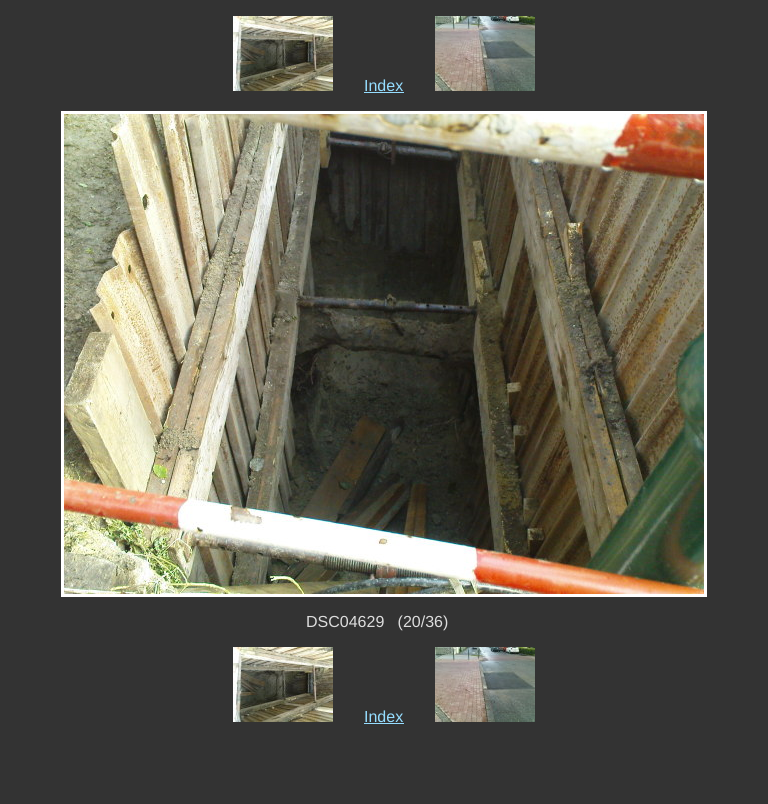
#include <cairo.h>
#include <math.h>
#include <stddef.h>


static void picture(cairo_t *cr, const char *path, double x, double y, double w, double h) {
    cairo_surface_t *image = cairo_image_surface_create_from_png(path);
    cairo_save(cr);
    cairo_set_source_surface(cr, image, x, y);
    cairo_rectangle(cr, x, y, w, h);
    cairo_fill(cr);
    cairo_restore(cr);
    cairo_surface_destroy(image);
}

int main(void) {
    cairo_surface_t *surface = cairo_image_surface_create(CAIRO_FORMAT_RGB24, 768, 804);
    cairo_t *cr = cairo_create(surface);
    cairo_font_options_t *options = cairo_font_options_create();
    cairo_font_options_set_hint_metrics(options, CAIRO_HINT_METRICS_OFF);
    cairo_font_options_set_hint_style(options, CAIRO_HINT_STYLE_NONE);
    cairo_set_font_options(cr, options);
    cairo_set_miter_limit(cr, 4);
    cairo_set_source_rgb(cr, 0.2, 0.2, 0.2);
    cairo_paint(cr);
    picture(cr, "img1.png", 233, 16, 100, 75);
    cairo_select_font_face(cr, "Liberation Sans", CAIRO_FONT_SLANT_NORMAL, CAIRO_FONT_WEIGHT_NORMAL);
    cairo_set_font_size(cr, 16);
    cairo_set_source_rgb(cr, 0.584, 0.867, 1);
    cairo_move_to(cr, 364, 91);
    cairo_show_text(cr, "Index");
    cairo_rectangle(cr, 364, 92, 40, 1);
    cairo_fill(cr);
    picture(cr, "img2.png", 435, 16, 100, 75);
    cairo_rectangle(cr, 62.5, 112.5, 643, 483);
    cairo_set_source_rgb(cr, 1, 1, 1);
    cairo_set_line_width(cr, 3);
    cairo_stroke(cr);
    picture(cr, "img3.png", 64, 114, 640, 480);
    cairo_set_source_rgb(cr, 0.867, 0.867, 0.867);
    cairo_move_to(cr, 306, 627);
    cairo_show_text(cr, "DSC04629   (20/36)");
    picture(cr, "img1.png", 233, 647, 100, 75);
    cairo_set_source_rgb(cr, 0.584, 0.867, 1);
    cairo_move_to(cr, 364, 722);
    cairo_show_text(cr, "Index");
    cairo_rectangle(cr, 364, 723, 40, 1);
    cairo_fill(cr);
    picture(cr, "img2.png", 435, 647, 100, 75);
    cairo_surface_write_to_png(surface, "page.png");
    cairo_font_options_destroy(options);
    cairo_destroy(cr);
    cairo_surface_destroy(surface);
    return 0;
}
